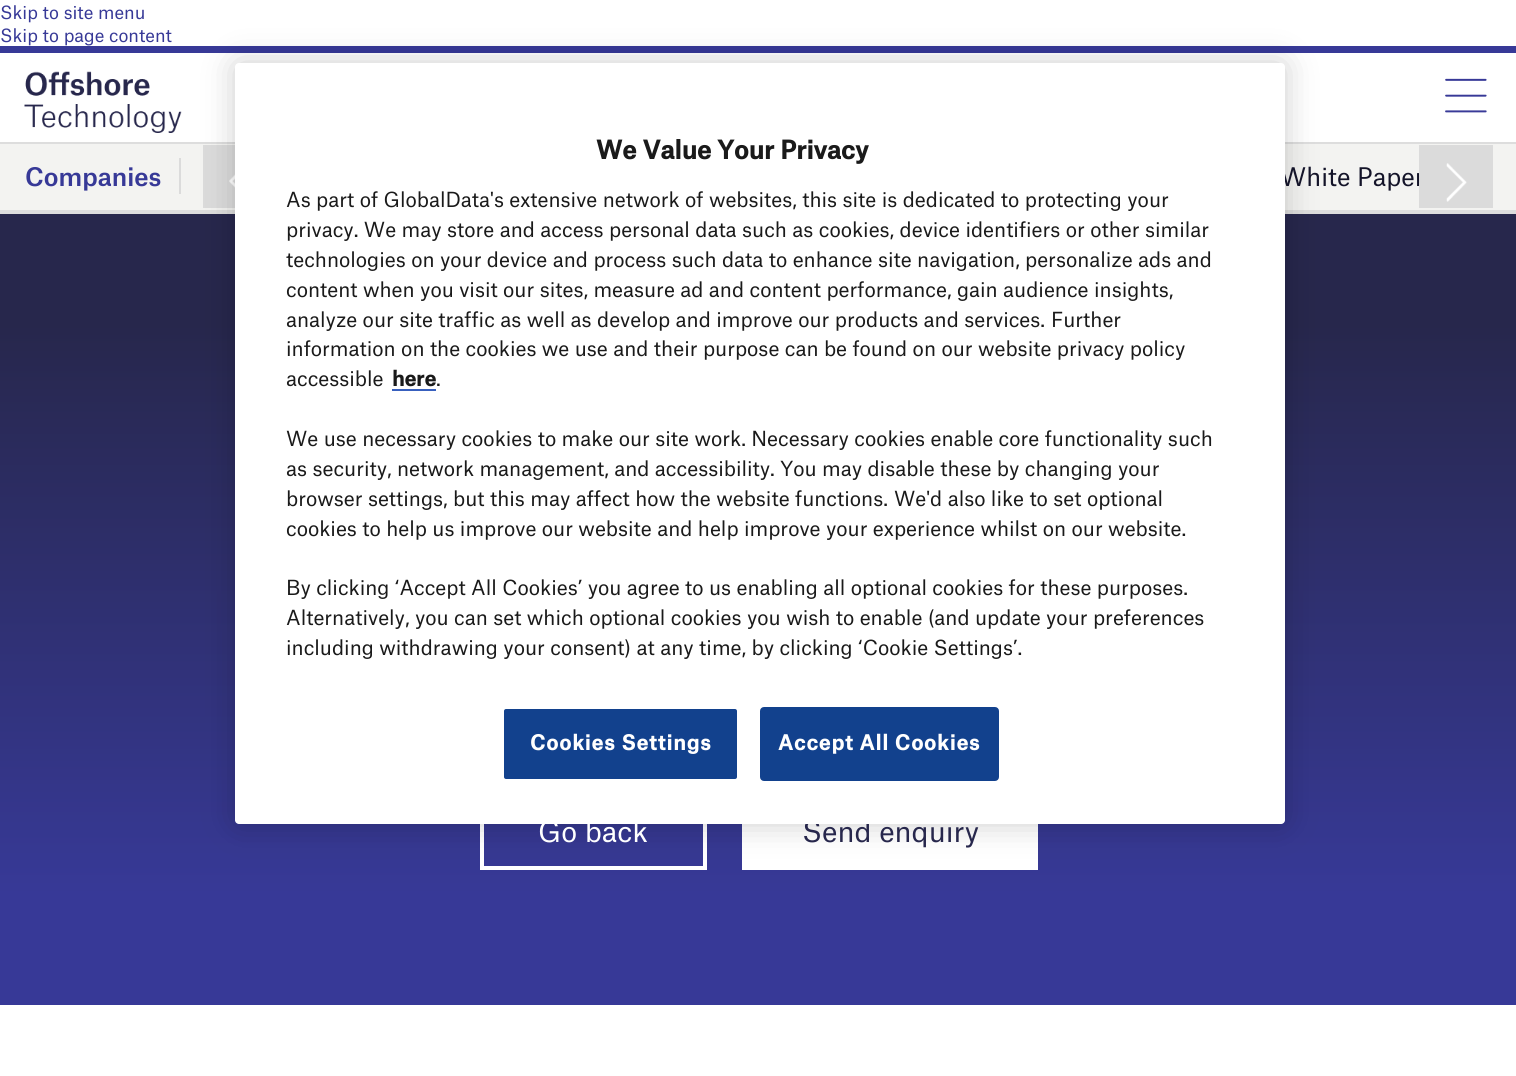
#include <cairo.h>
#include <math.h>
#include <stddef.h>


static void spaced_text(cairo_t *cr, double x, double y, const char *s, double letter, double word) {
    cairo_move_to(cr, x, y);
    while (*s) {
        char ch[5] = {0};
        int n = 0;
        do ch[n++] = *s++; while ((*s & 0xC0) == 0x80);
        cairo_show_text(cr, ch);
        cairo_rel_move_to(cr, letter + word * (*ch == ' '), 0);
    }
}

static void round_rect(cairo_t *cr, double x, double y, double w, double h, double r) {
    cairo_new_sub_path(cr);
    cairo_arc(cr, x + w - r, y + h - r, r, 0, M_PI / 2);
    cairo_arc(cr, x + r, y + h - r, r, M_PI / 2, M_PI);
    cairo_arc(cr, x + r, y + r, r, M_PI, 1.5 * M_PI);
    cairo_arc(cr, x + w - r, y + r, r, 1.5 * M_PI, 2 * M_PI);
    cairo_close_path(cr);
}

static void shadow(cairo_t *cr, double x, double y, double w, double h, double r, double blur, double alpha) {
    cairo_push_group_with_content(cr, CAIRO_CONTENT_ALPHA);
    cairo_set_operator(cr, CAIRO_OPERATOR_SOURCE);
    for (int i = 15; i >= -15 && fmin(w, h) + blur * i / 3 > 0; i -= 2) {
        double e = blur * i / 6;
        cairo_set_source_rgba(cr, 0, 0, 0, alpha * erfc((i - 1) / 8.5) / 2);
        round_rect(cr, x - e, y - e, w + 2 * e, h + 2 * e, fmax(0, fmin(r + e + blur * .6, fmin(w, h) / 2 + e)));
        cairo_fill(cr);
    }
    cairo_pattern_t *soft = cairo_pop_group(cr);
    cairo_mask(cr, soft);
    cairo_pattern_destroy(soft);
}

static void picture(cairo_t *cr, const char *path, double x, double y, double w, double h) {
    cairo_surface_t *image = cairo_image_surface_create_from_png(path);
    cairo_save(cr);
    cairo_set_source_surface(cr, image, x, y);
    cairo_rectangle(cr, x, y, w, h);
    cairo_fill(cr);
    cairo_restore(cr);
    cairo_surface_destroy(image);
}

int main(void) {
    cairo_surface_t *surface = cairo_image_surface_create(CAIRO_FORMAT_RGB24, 1516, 1076);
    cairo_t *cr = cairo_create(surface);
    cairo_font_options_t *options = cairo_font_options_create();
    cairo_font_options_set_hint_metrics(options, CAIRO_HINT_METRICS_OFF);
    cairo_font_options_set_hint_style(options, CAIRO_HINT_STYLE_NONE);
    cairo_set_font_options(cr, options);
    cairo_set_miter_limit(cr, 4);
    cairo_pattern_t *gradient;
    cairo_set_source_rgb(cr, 1, 1, 1);
    cairo_paint(cr);
    cairo_select_font_face(cr, "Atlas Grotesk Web", CAIRO_FONT_SLANT_NORMAL, CAIRO_FONT_WEIGHT_NORMAL);
    cairo_set_font_size(cr, 17.5);
    cairo_set_source_rgb(cr, 0.216, 0.224, 0.592);
    cairo_move_to(cr, 0, 19);
    cairo_show_text(cr, "Skip to site menu");
    cairo_move_to(cr, 0, 42);
    cairo_show_text(cr, "Skip to page content");
    cairo_rectangle(cr, 0, 46, 1516, 7);
    cairo_fill(cr);
    cairo_set_source_rgb(cr, 0.867, 0.867, 0.867);
    cairo_rectangle(cr, 0, 210, 1516, 4);
    cairo_fill(cr);
    cairo_set_source_rgb(cr, 0.953, 0.953, 0.945);
    cairo_rectangle(cr, 0, 144, 1516, 66);
    cairo_fill(cr);
    cairo_set_source_rgb(cr, 0.867, 0.867, 0.867);
    cairo_rectangle(cr, 0, 142, 1516, 2);
    cairo_fill(cr);
    cairo_set_source_rgb(cr, 0.859, 0.859, 0.859);
    cairo_rectangle(cr, 203, 145, 32, 63);
    cairo_fill(cr);
    picture(cr, "img3.png", 229, 174, 6, 14);
    gradient = cairo_pattern_create_linear(759, 213, 759, 1005);
    cairo_pattern_add_color_stop_rgba(gradient, 0.14, 0.153, 0.153, 0.298, 1);
    cairo_pattern_add_color_stop_rgba(gradient, 0.86, 0.216, 0.224, 0.592, 1);
    cairo_set_source(cr, gradient);
    cairo_pattern_destroy(gradient);
    cairo_rectangle(cr, 0, 214, 1516, 791);
    cairo_fill(cr);
    cairo_rectangle(cr, 482, 791, 223, 77);
    cairo_set_source_rgb(cr, 1, 1, 1);
    cairo_set_line_width(cr, 4);
    cairo_stroke(cr);
    cairo_rectangle(cr, 742, 824, 296, 46);
    cairo_fill(cr);
    cairo_set_source_rgb(cr, 0, 0, 0);
    shadow(cr, 235, 63, 1050, 761, 4, 16, 0.2);
    cairo_set_font_size(cr, 24.5);
    cairo_set_source_rgb(cr, 0.082, 0.082, 0.161);
    cairo_move_to(cr, 1280, 186);
    cairo_show_text(cr, "White Paper");
    cairo_set_font_size(cr, 28);
    cairo_set_source_rgb(cr, 0.153, 0.153, 0.298);
    cairo_move_to(cr, 802, 842);
    cairo_show_text(cr, "Send enquiry");
    cairo_set_source_rgb(cr, 1, 1, 1);
    round_rect(cr, 235, 63, 1050, 761, 4);
    cairo_fill(cr);
    cairo_select_font_face(cr, "Atlas Grotesk Web", CAIRO_FONT_SLANT_NORMAL, CAIRO_FONT_WEIGHT_BOLD);
    cairo_set_font_size(cr, 24.5);
    cairo_set_source_rgb(cr, 0.102, 0.102, 0.102);
    cairo_move_to(cr, 596, 159);
    cairo_show_text(cr, "We Value Your Privacy");
    cairo_select_font_face(cr, "Atlas Grotesk Web", CAIRO_FONT_SLANT_NORMAL, CAIRO_FONT_WEIGHT_NORMAL);
    cairo_set_font_size(cr, 19.9);
    cairo_move_to(cr, 286, 207);
    cairo_show_text(cr, "As part of GlobalData's extensive network of websites, this site is dedicated to protecting your");
    cairo_move_to(cr, 286, 237);
    cairo_show_text(cr, "privacy. We may store and access personal data such as cookies, device identifiers or other similar");
    cairo_move_to(cr, 286, 267);
    cairo_show_text(cr, "technologies on your device and process such data to enhance site navigation,");
    cairo_move_to(cr, 1025, 267);
    cairo_show_text(cr, "personalize ads and");
    cairo_move_to(cr, 286, 297);
    cairo_show_text(cr, "content when you visit our sites, measure ad and content performance, gain audience insights,");
    cairo_move_to(cr, 286, 327);
    cairo_show_text(cr, "analyze our site traffic as well as develop and improve our products and services.");
    cairo_move_to(cr, 1051, 327);
    cairo_show_text(cr, "Further");
    cairo_move_to(cr, 286, 356);
    cairo_show_text(cr, "information on the cookies we use and their purpose can be found on our website privacy policy");
    cairo_move_to(cr, 286, 386);
    cairo_show_text(cr, "accessible");
    cairo_select_font_face(cr, "Atlas Grotesk Web", CAIRO_FONT_SLANT_NORMAL, CAIRO_FONT_WEIGHT_BOLD);
    cairo_move_to(cr, 392, 386);
    cairo_show_text(cr, "here");
    cairo_set_source_rgb(cr, 0.22, 0.376, 0.745);
    cairo_rectangle(cr, 392, 389, 44, 2);
    cairo_fill(cr);
    cairo_select_font_face(cr, "Atlas Grotesk Web", CAIRO_FONT_SLANT_NORMAL, CAIRO_FONT_WEIGHT_NORMAL);
    cairo_set_source_rgb(cr, 0.102, 0.102, 0.102);
    cairo_move_to(cr, 436, 386);
    cairo_show_text(cr, ".");
    cairo_move_to(cr, 286, 446);
    cairo_show_text(cr, "We use necessary cookies to make our site work. Necessary cookies enable core functionality such");
    cairo_move_to(cr, 286, 476);
    cairo_show_text(cr, "as security, network management, and accessibility. You may disable these by changing your");
    cairo_move_to(cr, 286, 506);
    cairo_show_text(cr, "browser settings, but this may affect how the website functions.");
    cairo_move_to(cr, 894, 506);
    cairo_show_text(cr, "We'd also like to set optional");
    cairo_move_to(cr, 286, 536);
    cairo_show_text(cr, "cookies to help us improve our website and help improve your experience whilst on our website.");
    cairo_move_to(cr, 286, 595);
    cairo_show_text(cr, "By clicking ‘Accept All Cookies’ you agree to us enabling all optional cookies for these purposes.");
    cairo_move_to(cr, 286, 625);
    cairo_show_text(cr, "Alternatively, you can set which optional cookies you wish to enable (and update your preferences");
    cairo_move_to(cr, 286, 655);
    cairo_show_text(cr, "including withdrawing your consent) at any time, by clicking ‘Cookie Settings’.");
    cairo_set_source_rgb(cr, 0.071, 0.255, 0.553);
    round_rect(cr, 503, 708, 235, 72, 3);
    cairo_fill_preserve(cr);
    cairo_set_source_rgb(cr, 1, 1, 1);
    cairo_set_line_width(cr, 2);
    cairo_stroke(cr);
    cairo_select_font_face(cr, "Atlas Grotesk Web", CAIRO_FONT_SLANT_NORMAL, CAIRO_FONT_WEIGHT_BOLD);
    spaced_text(cr, 530, 750, "Cookies Settings", 1, 0);
    cairo_set_source_rgb(cr, 0.071, 0.255, 0.553);
    round_rect(cr, 761, 708, 237, 72, 3);
    cairo_fill_preserve(cr);
    cairo_stroke(cr);
    cairo_set_source_rgb(cr, 1, 1, 1);
    spaced_text(cr, 778, 750, "Accept All Cookies", 1, 0);
    picture(cr, "img1.png", 24, 71, 158, 62);
    picture(cr, "img2.png", 1445, 78, 42, 35);
    cairo_select_font_face(cr, "Atlas Grotesk Web Medium", CAIRO_FONT_SLANT_NORMAL, CAIRO_FONT_WEIGHT_NORMAL);
    cairo_set_font_size(cr, 24.5);
    cairo_set_source_rgb(cr, 0.216, 0.224, 0.592);
    cairo_move_to(cr, 25, 186);
    cairo_show_text(cr, "Companies");
    cairo_set_source_rgb(cr, 0.859, 0.859, 0.859);
    cairo_rectangle(cr, 179, 158, 2, 36);
    cairo_fill(cr);
    cairo_rectangle(cr, 1419, 145, 74, 63);
    cairo_fill(cr);
    picture(cr, "img4.png", 1446, 163, 21, 39);
    cairo_select_font_face(cr, "Atlas Grotesk Web", CAIRO_FONT_SLANT_NORMAL, CAIRO_FONT_WEIGHT_NORMAL);
    cairo_set_font_size(cr, 28);
    cairo_set_source_rgb(cr, 1, 1, 1);
    cairo_move_to(cr, 538, 842);
    cairo_show_text(cr, "Go back");
    cairo_surface_write_to_png(surface, "page.png");
    cairo_font_options_destroy(options);
    cairo_destroy(cr);
    cairo_surface_destroy(surface);
    return 0;
}
